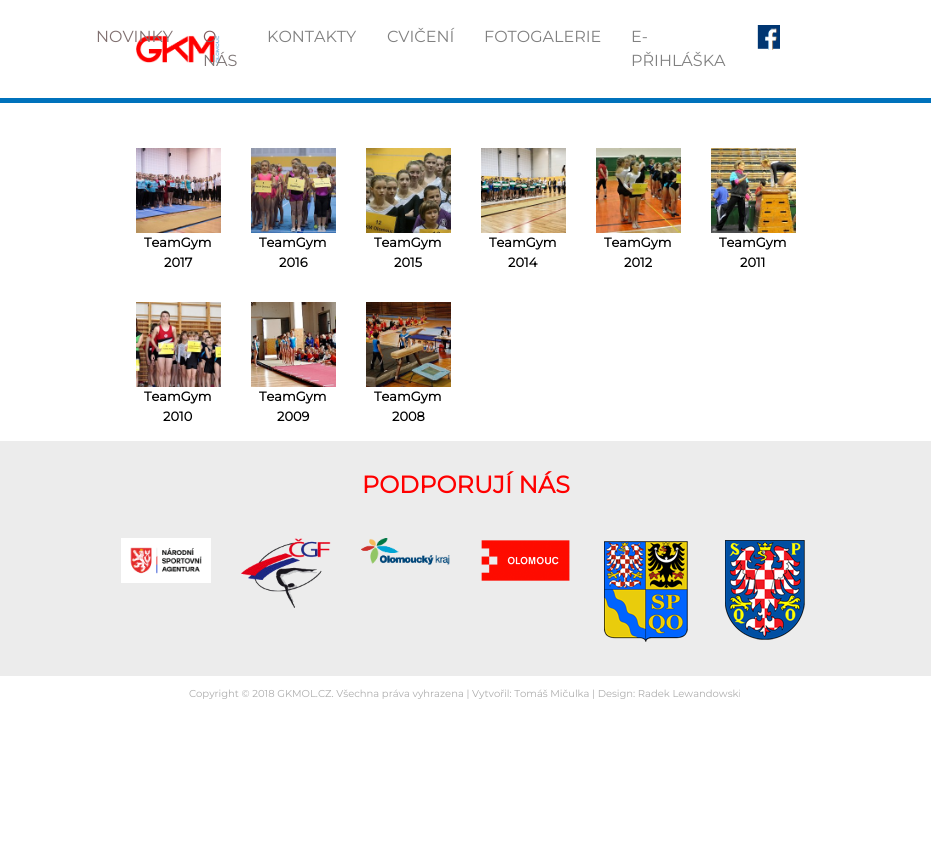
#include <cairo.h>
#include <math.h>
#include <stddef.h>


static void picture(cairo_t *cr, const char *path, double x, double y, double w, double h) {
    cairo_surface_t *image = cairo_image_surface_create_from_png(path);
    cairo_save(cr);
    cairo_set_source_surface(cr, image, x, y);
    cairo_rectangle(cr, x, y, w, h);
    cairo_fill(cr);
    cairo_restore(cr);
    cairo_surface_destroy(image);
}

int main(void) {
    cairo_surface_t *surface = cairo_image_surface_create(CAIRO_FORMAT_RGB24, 931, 850);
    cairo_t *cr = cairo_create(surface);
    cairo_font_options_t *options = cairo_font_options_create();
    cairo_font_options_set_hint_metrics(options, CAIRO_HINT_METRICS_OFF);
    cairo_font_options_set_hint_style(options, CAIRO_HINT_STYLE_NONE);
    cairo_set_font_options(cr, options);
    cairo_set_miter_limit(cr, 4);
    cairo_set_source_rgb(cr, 1, 1, 1);
    cairo_paint(cr);
    cairo_set_source_rgb(cr, 0, 0.447, 0.737);
    cairo_rectangle(cr, 0, 98, 931, 5);
    cairo_fill(cr);
    picture(cr, "img2.png", 136, 35, 84, 28);
    cairo_select_font_face(cr, "Montserrat Thin", CAIRO_FONT_SLANT_NORMAL, CAIRO_FONT_WEIGHT_NORMAL);
    cairo_set_font_size(cr, 16);
    cairo_set_source_rgb(cr, 0.502, 0.439, 0.439);
    cairo_move_to(cr, 96, 42);
    cairo_show_text(cr, "NOVINKY");
    cairo_set_source_rgb(cr, 0.498, 0.361, 0.365);
    cairo_move_to(cr, 203, 42);
    cairo_show_text(cr, "O");
    cairo_set_source_rgb(cr, 0.494, 0.463, 0.463);
    cairo_move_to(cr, 203, 66);
    cairo_show_text(cr, "NÁS");
    cairo_set_source_rgb(cr, 0.502, 0.502, 0.502);
    cairo_move_to(cr, 267, 42);
    cairo_show_text(cr, "KONTAKTY");
    cairo_move_to(cr, 387, 42);
    cairo_show_text(cr, "CVIČENÍ");
    cairo_move_to(cr, 484, 42);
    cairo_show_text(cr, "FOTOGALERIE");
    cairo_move_to(cr, 631, 42);
    cairo_show_text(cr, "E-");
    cairo_move_to(cr, 631, 66);
    cairo_show_text(cr, "PŘIHLÁŠKA");
    picture(cr, "img1.png", 757, 25, 23, 25);
    picture(cr, "img3.png", 136, 148, 85, 85);
    cairo_select_font_face(cr, "Montserrat", CAIRO_FONT_SLANT_NORMAL, CAIRO_FONT_WEIGHT_BOLD);
    cairo_set_font_size(cr, 13);
    cairo_set_source_rgb(cr, 0, 0, 0);
    cairo_move_to(cr, 144, 247);
    cairo_show_text(cr, "TeamGym");
    cairo_move_to(cr, 164, 267);
    cairo_show_text(cr, "2017");
    picture(cr, "img4.png", 251, 148, 85, 85);
    cairo_move_to(cr, 259, 247);
    cairo_show_text(cr, "TeamGym");
    cairo_move_to(cr, 279, 267);
    cairo_show_text(cr, "2016");
    picture(cr, "img5.png", 366, 148, 85, 85);
    cairo_move_to(cr, 374, 247);
    cairo_show_text(cr, "TeamGym");
    cairo_move_to(cr, 394, 267);
    cairo_show_text(cr, "2015");
    picture(cr, "img6.png", 481, 148, 85, 85);
    cairo_move_to(cr, 489, 247);
    cairo_show_text(cr, "TeamGym");
    cairo_move_to(cr, 508, 267);
    cairo_show_text(cr, "2014");
    picture(cr, "img7.png", 596, 148, 85, 85);
    cairo_move_to(cr, 604, 247);
    cairo_show_text(cr, "TeamGym");
    cairo_move_to(cr, 624, 267);
    cairo_show_text(cr, "2012");
    picture(cr, "img8.png", 711, 148, 85, 85);
    cairo_move_to(cr, 719, 247);
    cairo_show_text(cr, "TeamGym");
    cairo_move_to(cr, 740, 267);
    cairo_show_text(cr, "2011");
    picture(cr, "img9.png", 136, 302, 85, 85);
    cairo_move_to(cr, 144, 401);
    cairo_show_text(cr, "TeamGym");
    cairo_move_to(cr, 163, 421);
    cairo_show_text(cr, "2010");
    picture(cr, "img10.png", 251, 302, 85, 85);
    cairo_move_to(cr, 259, 401);
    cairo_show_text(cr, "TeamGym");
    cairo_move_to(cr, 277, 421);
    cairo_show_text(cr, "2009");
    picture(cr, "img11.png", 366, 302, 85, 85);
    cairo_move_to(cr, 374, 401);
    cairo_show_text(cr, "TeamGym");
    cairo_move_to(cr, 392, 421);
    cairo_show_text(cr, "2008");
    cairo_set_source_rgb(cr, 0.922, 0.922, 0.922);
    cairo_rectangle(cr, 0, 441, 931, 235);
    cairo_fill(cr);
    cairo_set_font_size(cr, 24);
    cairo_set_source_rgb(cr, 1, 0, 0);
    cairo_move_to(cr, 362, 493);
    cairo_show_text(cr, "PODPORUJÍ NÁS");
    picture(cr, "img12.png", 121, 538, 90, 45);
    picture(cr, "img13.png", 241, 538, 90, 70);
    picture(cr, "img14.png", 361, 538, 89, 27);
    picture(cr, "img15.png", 481, 540, 89, 41);
    picture(cr, "img16.png", 604, 541, 84, 101);
    picture(cr, "img17.png", 725, 540, 80, 100);
    cairo_select_font_face(cr, "Montserrat Thin", CAIRO_FONT_SLANT_NORMAL, CAIRO_FONT_WEIGHT_NORMAL);
    cairo_set_font_size(cr, 10);
    cairo_set_source_rgb(cr, 0.675, 0.675, 0.675);
    cairo_move_to(cr, 189, 697);
    cairo_show_text(cr, "Copyright © 2018 GKMOL.CZ. Všechna práva vyhrazena | Vytvořil: Tomáš Mičulka | Design: Radek Lewandowski");
    cairo_surface_write_to_png(surface, "page.png");
    cairo_font_options_destroy(options);
    cairo_destroy(cr);
    cairo_surface_destroy(surface);
    return 0;
}
